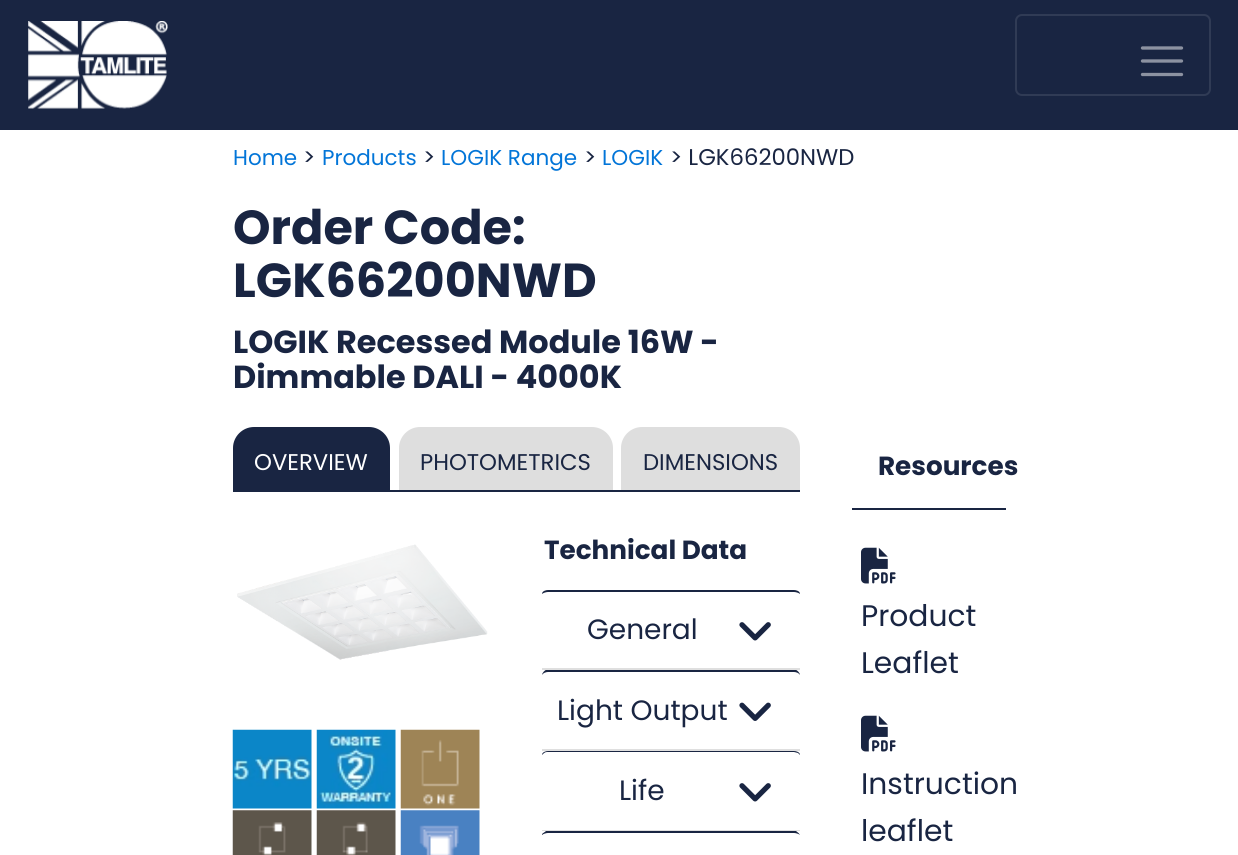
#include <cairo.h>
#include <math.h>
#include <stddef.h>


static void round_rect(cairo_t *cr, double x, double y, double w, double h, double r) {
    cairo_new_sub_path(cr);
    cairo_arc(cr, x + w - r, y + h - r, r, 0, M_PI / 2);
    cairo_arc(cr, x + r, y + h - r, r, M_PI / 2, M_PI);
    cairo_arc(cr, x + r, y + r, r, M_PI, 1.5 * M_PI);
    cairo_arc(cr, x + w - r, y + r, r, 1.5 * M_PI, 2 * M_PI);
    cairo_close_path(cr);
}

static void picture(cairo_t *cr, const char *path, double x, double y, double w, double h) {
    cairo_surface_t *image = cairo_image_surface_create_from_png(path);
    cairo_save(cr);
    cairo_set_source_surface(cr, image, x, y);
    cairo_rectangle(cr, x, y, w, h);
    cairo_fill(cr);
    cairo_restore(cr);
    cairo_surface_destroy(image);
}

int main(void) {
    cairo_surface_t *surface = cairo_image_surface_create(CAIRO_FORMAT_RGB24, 1238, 855);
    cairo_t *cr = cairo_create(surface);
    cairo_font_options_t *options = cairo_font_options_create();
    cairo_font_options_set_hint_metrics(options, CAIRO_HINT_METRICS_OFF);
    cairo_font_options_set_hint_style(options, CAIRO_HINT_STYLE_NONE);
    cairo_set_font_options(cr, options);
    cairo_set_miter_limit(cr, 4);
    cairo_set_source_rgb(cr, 1, 1, 1);
    cairo_paint(cr);
    cairo_set_source_rgb(cr, 0.098, 0.145, 0.259);
    cairo_rectangle(cr, 0, 0, 1238, 130);
    cairo_fill(cr);
    picture(cr, "img1.png", 28, 21, 140, 88);
    round_rect(cr, 1016, 15, 194, 80, 6);
    cairo_set_source_rgb(cr, 0.188, 0.231, 0.333);
    cairo_stroke(cr);
    cairo_new_path(cr);
    cairo_move_to(cr, 1142.5, 48);
    cairo_line_to(cr, 1181.5, 48);
    cairo_move_to(cr, 1142.5, 61);
    cairo_line_to(cr, 1181.5, 61);
    cairo_move_to(cr, 1142.5, 74.5);
    cairo_line_to(cr, 1181.5, 74.5);
    cairo_set_source_rgb(cr, 0.549, 0.573, 0.631);
    cairo_set_line_width(cr, 3.3);
    cairo_set_line_cap(cr, CAIRO_LINE_CAP_ROUND);
    cairo_stroke(cr);
    cairo_select_font_face(cr, "Poppins", CAIRO_FONT_SLANT_NORMAL, CAIRO_FONT_WEIGHT_NORMAL);
    cairo_set_font_size(cr, 21.5);
    cairo_set_source_rgb(cr, 0.008, 0.459, 0.847);
    cairo_move_to(cr, 233, 165);
    cairo_show_text(cr, "Home");
    cairo_set_font_size(cr, 22.75);
    cairo_set_source_rgb(cr, 0.098, 0.145, 0.259);
    cairo_move_to(cr, 303, 165);
    cairo_show_text(cr, ">");
    cairo_set_font_size(cr, 21.5);
    cairo_set_source_rgb(cr, 0.008, 0.459, 0.847);
    cairo_move_to(cr, 322, 165);
    cairo_show_text(cr, "Products");
    cairo_set_font_size(cr, 22.75);
    cairo_set_source_rgb(cr, 0.098, 0.145, 0.259);
    cairo_move_to(cr, 423, 165);
    cairo_show_text(cr, ">");
    cairo_set_font_size(cr, 21.5);
    cairo_set_source_rgb(cr, 0.008, 0.459, 0.847);
    cairo_move_to(cr, 441, 165);
    cairo_show_text(cr, "LOGIK Range");
    cairo_set_font_size(cr, 22.75);
    cairo_set_source_rgb(cr, 0.098, 0.145, 0.259);
    cairo_move_to(cr, 584, 165);
    cairo_show_text(cr, ">");
    cairo_set_font_size(cr, 21.5);
    cairo_set_source_rgb(cr, 0.008, 0.459, 0.847);
    cairo_move_to(cr, 602, 165);
    cairo_show_text(cr, "LOGIK");
    cairo_set_font_size(cr, 22.75);
    cairo_set_source_rgb(cr, 0.098, 0.145, 0.259);
    cairo_move_to(cr, 670, 165);
    cairo_show_text(cr, "> LGK66200NWD");
    cairo_select_font_face(cr, "Poppins", CAIRO_FONT_SLANT_NORMAL, CAIRO_FONT_WEIGHT_BOLD);
    cairo_set_font_size(cr, 47.75);
    cairo_move_to(cr, 233, 244);
    cairo_show_text(cr, "Order Code:");
    cairo_move_to(cr, 233, 297);
    cairo_show_text(cr, "LGK66200NWD");
    cairo_set_font_size(cr, 31.9);
    cairo_move_to(cr, 233, 353);
    cairo_show_text(cr, "LOGIK Recessed Module 16W -");
    cairo_move_to(cr, 233, 388);
    cairo_show_text(cr, "Dimmable DALI - 4000K");
    cairo_rectangle(cr, 233, 490, 567, 2);
    cairo_fill(cr);
    cairo_new_path(cr);
    cairo_move_to(cr, 254, 427);
    cairo_line_to(cr, 369, 427);
    cairo_curve_to(cr, 380.5, 427, 390, 436.5, 390, 448);
    cairo_line_to(cr, 390, 490);
    cairo_line_to(cr, 233, 490);
    cairo_line_to(cr, 233, 448);
    cairo_curve_to(cr, 233, 436.5, 242.5, 427, 254, 427);
    cairo_close_path(cr);
    cairo_fill(cr);
    cairo_select_font_face(cr, "Poppins", CAIRO_FONT_SLANT_NORMAL, CAIRO_FONT_WEIGHT_NORMAL);
    cairo_set_font_size(cr, 22.75);
    cairo_set_source_rgb(cr, 1, 1, 1);
    cairo_move_to(cr, 254, 470);
    cairo_show_text(cr, "OVERVIEW");
    cairo_set_source_rgb(cr, 0.871, 0.871, 0.871);
    cairo_new_path(cr);
    cairo_move_to(cr, 420, 427);
    cairo_line_to(cr, 592, 427);
    cairo_curve_to(cr, 603.5, 427, 613, 436.5, 613, 448);
    cairo_line_to(cr, 613, 490);
    cairo_line_to(cr, 399, 490);
    cairo_line_to(cr, 399, 448);
    cairo_curve_to(cr, 399, 436.5, 408.5, 427, 420, 427);
    cairo_close_path(cr);
    cairo_fill(cr);
    cairo_set_source_rgb(cr, 0.098, 0.145, 0.259);
    cairo_move_to(cr, 420, 470);
    cairo_show_text(cr, "PHOTOMETRICS");
    cairo_set_source_rgb(cr, 0.871, 0.871, 0.871);
    cairo_new_path(cr);
    cairo_move_to(cr, 642, 427);
    cairo_line_to(cr, 779, 427);
    cairo_curve_to(cr, 790.5, 427, 800, 436.5, 800, 448);
    cairo_line_to(cr, 800, 490);
    cairo_line_to(cr, 621, 490);
    cairo_line_to(cr, 621, 448);
    cairo_curve_to(cr, 621, 436.5, 630.5, 427, 642, 427);
    cairo_close_path(cr);
    cairo_fill(cr);
    cairo_set_source_rgb(cr, 0.098, 0.145, 0.259);
    cairo_move_to(cr, 643, 470);
    cairo_show_text(cr, "DIMENSIONS");
    picture(cr, "img2.png", 237, 544, 251, 116);
    picture(cr, "img3.png", 232, 729, 80, 80);
    picture(cr, "img4.png", 316, 729, 80, 80);
    picture(cr, "img5.png", 400, 729, 80, 80);
    picture(cr, "img6.png", 232, 810, 80, 45);
    picture(cr, "img7.png", 316, 810, 80, 45);
    picture(cr, "img8.png", 400, 810, 80, 45);
    cairo_select_font_face(cr, "Poppins", CAIRO_FONT_SLANT_NORMAL, CAIRO_FONT_WEIGHT_BOLD);
    cairo_set_font_size(cr, 26.25);
    cairo_move_to(cr, 544, 559);
    cairo_show_text(cr, "Technical Data");
    cairo_new_path(cr);
    cairo_move_to(cr, 548, 590);
    cairo_line_to(cr, 794, 590);
    cairo_curve_to(cr, 796, 590, 800, 591, 800, 594);
    cairo_curve_to(cr, 799, 593, 796, 592, 794, 592);
    cairo_line_to(cr, 548, 592);
    cairo_curve_to(cr, 546, 592, 543, 593, 542, 594);
    cairo_curve_to(cr, 542, 591, 546, 590, 548, 590);
    cairo_close_path(cr);
    cairo_fill(cr);
    cairo_set_source_rgb(cr, 0.875, 0.875, 0.875);
    cairo_rectangle(cr, 542, 668, 258, 2);
    cairo_fill(cr);
    cairo_select_font_face(cr, "Poppins", CAIRO_FONT_SLANT_NORMAL, CAIRO_FONT_WEIGHT_NORMAL);
    cairo_set_font_size(cr, 28);
    cairo_set_source_rgb(cr, 0.098, 0.145, 0.259);
    cairo_move_to(cr, 587, 639);
    cairo_show_text(cr, "General");
    picture(cr, "img9.png", 739, 622, 32, 19);
    cairo_new_path(cr);
    cairo_move_to(cr, 548, 672);
    cairo_curve_to(cr, 546, 672, 543, 673, 542, 675);
    cairo_curve_to(cr, 542, 673, 545, 670, 546, 670);
    cairo_line_to(cr, 796, 670);
    cairo_curve_to(cr, 797, 670, 800, 673, 800, 675);
    cairo_curve_to(cr, 799, 673, 796, 672, 794, 672);
    cairo_close_path(cr);
    cairo_fill(cr);
    cairo_set_source_rgb(cr, 0.875, 0.875, 0.875);
    cairo_rectangle(cr, 542, 749, 258, 2);
    cairo_fill(cr);
    cairo_set_source_rgb(cr, 0.098, 0.145, 0.259);
    cairo_move_to(cr, 557, 720);
    cairo_show_text(cr, "Light Output");
    picture(cr, "img10.png", 739, 702, 32, 19);
    cairo_new_path(cr);
    cairo_move_to(cr, 548, 751);
    cairo_line_to(cr, 794, 751);
    cairo_curve_to(cr, 796, 751, 800, 752, 800, 755);
    cairo_line_to(cr, 798, 753);
    cairo_line_to(cr, 794, 752);
    cairo_line_to(cr, 547, 752);
    cairo_curve_to(cr, 545, 752, 544, 753, 542, 755);
    cairo_curve_to(cr, 542, 752, 546, 751, 548, 751);
    cairo_close_path(cr);
    cairo_fill(cr);
    cairo_set_source_rgb(cr, 0.875, 0.875, 0.875);
    cairo_rectangle(cr, 542, 830, 258, 1);
    cairo_fill(cr);
    cairo_set_source_rgb(cr, 0.098, 0.145, 0.259);
    cairo_move_to(cr, 619, 800);
    cairo_show_text(cr, "Life");
    picture(cr, "img9.png", 739, 783, 32, 19);
    cairo_new_path(cr);
    cairo_move_to(cr, 548, 833);
    cairo_curve_to(cr, 546, 833, 543, 834, 542, 835);
    cairo_line_to(cr, 542, 834);
    cairo_curve_to(cr, 543, 833, 545, 832, 546, 831);
    cairo_line_to(cr, 796, 831);
    cairo_curve_to(cr, 797, 832, 799, 833, 800, 835);
    cairo_curve_to(cr, 799, 834, 796, 833, 794, 833);
    cairo_close_path(cr);
    cairo_fill(cr);
    cairo_rectangle(cr, 852, 508, 154, 2);
    cairo_fill(cr);
    cairo_select_font_face(cr, "Poppins", CAIRO_FONT_SLANT_NORMAL, CAIRO_FONT_WEIGHT_BOLD);
    cairo_set_font_size(cr, 26.25);
    cairo_move_to(cr, 878, 475);
    cairo_show_text(cr, "Resources");
    picture(cr, "img11.png", 861, 547, 35, 37);
    cairo_select_font_face(cr, "Poppins", CAIRO_FONT_SLANT_NORMAL, CAIRO_FONT_WEIGHT_NORMAL);
    cairo_set_font_size(cr, 29.75);
    cairo_move_to(cr, 861, 626);
    cairo_show_text(cr, "Product");
    cairo_move_to(cr, 861, 673);
    cairo_show_text(cr, "Leaflet");
    picture(cr, "img11.png", 861, 715, 35, 37);
    cairo_move_to(cr, 861, 794);
    cairo_show_text(cr, "Instruction");
    cairo_move_to(cr, 861, 841);
    cairo_show_text(cr, "leaflet");
    cairo_surface_write_to_png(surface, "page.png");
    cairo_font_options_destroy(options);
    cairo_destroy(cr);
    cairo_surface_destroy(surface);
    return 0;
}
